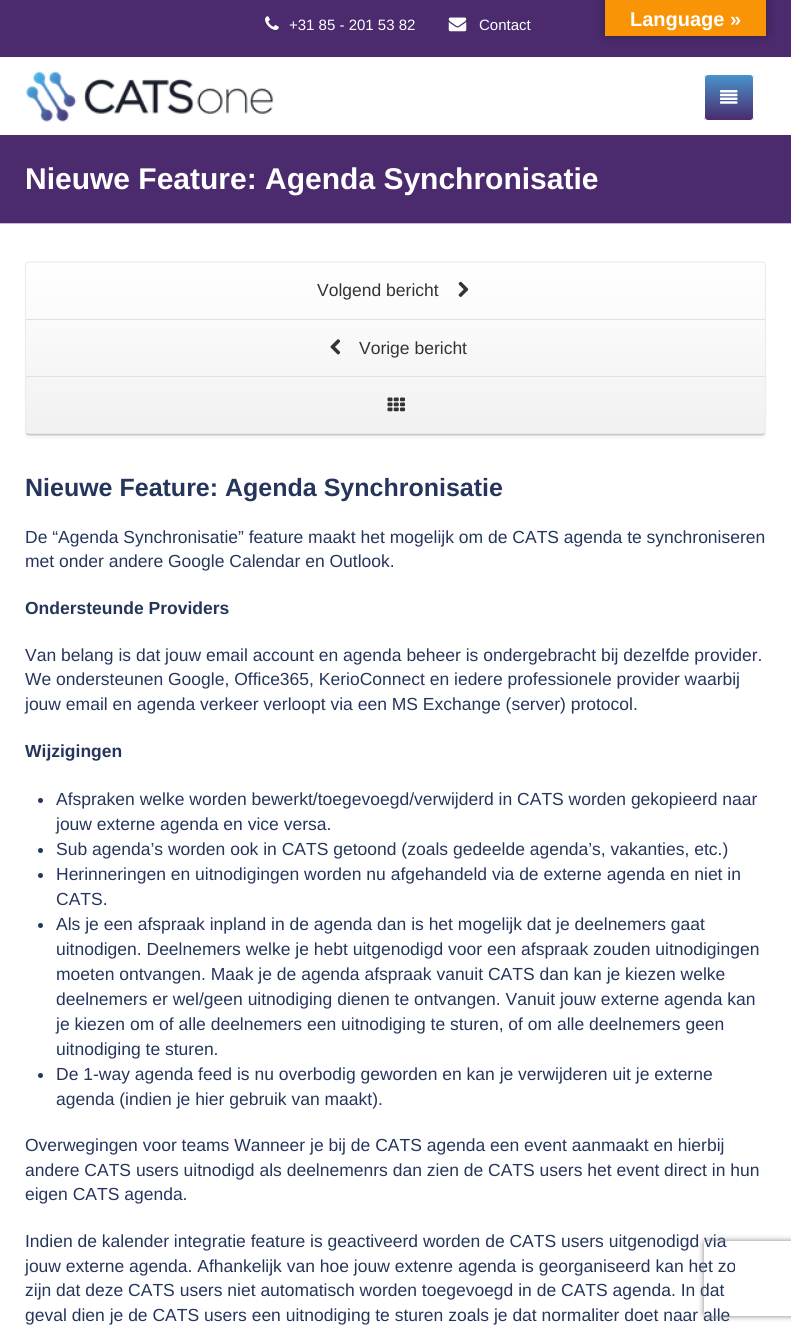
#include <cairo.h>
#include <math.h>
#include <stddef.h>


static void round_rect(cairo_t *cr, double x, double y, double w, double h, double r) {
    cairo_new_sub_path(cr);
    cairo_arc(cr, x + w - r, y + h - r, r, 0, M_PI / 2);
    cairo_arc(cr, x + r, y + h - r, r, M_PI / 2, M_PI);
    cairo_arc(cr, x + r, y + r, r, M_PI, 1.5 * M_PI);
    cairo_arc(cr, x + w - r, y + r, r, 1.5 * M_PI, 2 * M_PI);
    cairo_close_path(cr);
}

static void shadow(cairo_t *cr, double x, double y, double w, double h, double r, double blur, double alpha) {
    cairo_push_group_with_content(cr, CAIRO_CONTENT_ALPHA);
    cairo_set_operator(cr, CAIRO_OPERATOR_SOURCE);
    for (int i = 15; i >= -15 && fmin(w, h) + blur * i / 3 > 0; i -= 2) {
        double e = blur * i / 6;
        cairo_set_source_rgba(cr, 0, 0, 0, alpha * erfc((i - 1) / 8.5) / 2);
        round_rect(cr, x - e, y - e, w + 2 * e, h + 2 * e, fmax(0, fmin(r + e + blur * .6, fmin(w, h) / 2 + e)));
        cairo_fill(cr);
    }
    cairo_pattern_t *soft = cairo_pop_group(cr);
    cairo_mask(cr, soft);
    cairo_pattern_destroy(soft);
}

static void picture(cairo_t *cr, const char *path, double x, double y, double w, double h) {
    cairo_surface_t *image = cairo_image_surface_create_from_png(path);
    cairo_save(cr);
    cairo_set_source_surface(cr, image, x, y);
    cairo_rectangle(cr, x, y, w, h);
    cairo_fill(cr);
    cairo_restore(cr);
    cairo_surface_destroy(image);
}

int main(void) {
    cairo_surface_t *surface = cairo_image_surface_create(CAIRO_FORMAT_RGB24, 791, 1333);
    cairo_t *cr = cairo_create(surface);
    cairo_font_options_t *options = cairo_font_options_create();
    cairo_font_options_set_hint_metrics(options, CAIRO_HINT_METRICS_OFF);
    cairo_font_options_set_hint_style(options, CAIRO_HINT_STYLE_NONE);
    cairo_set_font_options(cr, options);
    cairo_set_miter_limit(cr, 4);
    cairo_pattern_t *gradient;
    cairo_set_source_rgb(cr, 1, 1, 1);
    cairo_paint(cr);
    cairo_set_source_rgb(cr, 0.294, 0.169, 0.431);
    cairo_rectangle(cr, 0, 0, 791, 57);
    cairo_fill(cr);
    cairo_set_source_rgb(cr, 0, 0, 0);
    shadow(cr, 605, 0, 161, 36, 0, 5.5, 0.3);
    cairo_set_source_rgb(cr, 0.973, 0.58, 0.024);
    cairo_rectangle(cr, 605, 0, 161, 36);
    cairo_fill(cr);
    cairo_select_font_face(cr, "Liberation Sans", CAIRO_FONT_SLANT_NORMAL, CAIRO_FONT_WEIGHT_BOLD);
    cairo_set_font_size(cr, 20);
    cairo_set_source_rgb(cr, 1, 1, 1);
    cairo_move_to(cr, 630, 26);
    cairo_show_text(cr, "Language »");
    cairo_set_source_rgb(cr, 0.976, 0.976, 0.976);
    cairo_rectangle(cr, 0, 57, 791, 1);
    cairo_fill(cr);
    picture(cr, "img1.png", 265, 16, 14, 14);
    cairo_select_font_face(cr, "Liberation Sans", CAIRO_FONT_SLANT_NORMAL, CAIRO_FONT_WEIGHT_NORMAL);
    cairo_set_font_size(cr, 15);
    cairo_set_source_rgb(cr, 1, 1, 1);
    cairo_move_to(cr, 289, 30);
    cairo_show_text(cr, "+31 85 - 201 53 82");
    picture(cr, "img2.png", 448, 17, 19, 15);
    cairo_move_to(cr, 479, 30);
    cairo_show_text(cr, "Contact");
    picture(cr, "img3.png", 26, 71, 248, 51);
    cairo_save(cr);
    round_rect(cr, 704, 74, 50, 47, 4);
    cairo_clip(cr);
    gradient = cairo_pattern_create_linear(729, 75, 729, 120);
    cairo_pattern_add_color_stop_rgba(gradient, 0, 0.286, 0.576, 0.8, 1);
    cairo_pattern_add_color_stop_rgba(gradient, 1, 0.294, 0.169, 0.431, 1);
    cairo_set_source(cr, gradient);
    cairo_pattern_destroy(gradient);
    cairo_rectangle(cr, 704, 75, 50, 45);
    cairo_fill(cr);
    cairo_restore(cr);
    round_rect(cr, 704.5, 74.5, 49, 46, 3.5);
    cairo_set_line_width(cr, 1);
    cairo_stroke(cr);
    picture(cr, "img4.png", 720, 90, 18, 14);
    cairo_set_source_rgb(cr, 0.294, 0.169, 0.431);
    cairo_rectangle(cr, 0, 135, 791, 88);
    cairo_fill(cr);
    cairo_set_source_rgb(cr, 0.792, 0.725, 0.871);
    cairo_rectangle(cr, 0, 223, 791, 1);
    cairo_fill(cr);
    cairo_select_font_face(cr, "Liberation Sans", CAIRO_FONT_SLANT_NORMAL, CAIRO_FONT_WEIGHT_BOLD);
    cairo_set_font_size(cr, 30);
    cairo_set_source_rgb(cr, 1, 1, 1);
    cairo_move_to(cr, 25, 189);
    cairo_show_text(cr, "Nieuwe Feature: Agenda Synchronisatie");
    cairo_set_source_rgb(cr, 0.929, 0.929, 0.929);
    cairo_new_path(cr);
    cairo_move_to(cr, 25, 431);
    cairo_line_to(cr, 25, 432);
    cairo_curve_to(cr, 25, 434, 27, 436, 29, 436);
    cairo_line_to(cr, 762, 436);
    cairo_curve_to(cr, 764, 436, 766, 435, 766, 433);
    cairo_curve_to(cr, 765, 434, 764, 435, 762, 435);
    cairo_line_to(cr, 29, 435);
    cairo_curve_to(cr, 27, 435, 25, 433, 25, 431);
    cairo_close_path(cr);
    cairo_fill(cr);
    cairo_set_source_rgba(cr, 0, 0, 0, 0.03);
    cairo_new_path(cr);
    cairo_move_to(cr, 25, 431);
    cairo_line_to(cr, 25, 435);
    cairo_curve_to(cr, 25, 437, 27, 439, 29, 439);
    cairo_line_to(cr, 762, 439);
    cairo_curve_to(cr, 764, 439, 766, 437, 766, 435);
    cairo_line_to(cr, 766, 433);
    cairo_curve_to(cr, 765, 434, 764, 435, 762, 435);
    cairo_line_to(cr, 29, 435);
    cairo_curve_to(cr, 27, 435, 25, 433, 25, 431);
    cairo_close_path(cr);
    cairo_fill(cr);
    cairo_set_source_rgb(cr, 1, 1, 1);
    round_rect(cr, 25, 261, 741, 174, 4);
    cairo_fill(cr);
    cairo_save(cr);
    round_rect(cr, 25, 261, 741, 174, 4);
    cairo_clip(cr);
    gradient = cairo_pattern_create_linear(396, 262, 396, 434);
    cairo_pattern_add_color_stop_rgba(gradient, 0, 1, 1, 1, 1);
    cairo_pattern_add_color_stop_rgba(gradient, 1, 0.945, 0.945, 0.945, 1);
    cairo_set_source(cr, gradient);
    cairo_pattern_destroy(gradient);
    cairo_rectangle(cr, 25, 263, 741, 171);
    cairo_fill(cr);
    cairo_restore(cr);
    cairo_new_path(cr);
    cairo_move_to(cr, 764.5, 433.5);
    cairo_line_to(cr, 762.5, 434.5);
    cairo_line_to(cr, 29, 434.5);
    cairo_line_to(cr, 26.5, 433.5);
    cairo_set_source_rgba(cr, 0, 0, 0, 0.22);
    cairo_set_line_width(cr, 1.2);
    cairo_stroke(cr);
    cairo_new_path(cr);
    cairo_move_to(cr, 26.5, 433.5);
    cairo_line_to(cr, 25.5, 431);
    cairo_line_to(cr, 25.5, 265);
    cairo_line_to(cr, 26.5, 263);
    cairo_line_to(cr, 29, 262);
    cairo_line_to(cr, 762.5, 262);
    cairo_line_to(cr, 764.5, 263);
    cairo_line_to(cr, 765.5, 265);
    cairo_line_to(cr, 765.5, 431);
    cairo_line_to(cr, 764.5, 433.5);
    cairo_set_source_rgb(cr, 0.922, 0.922, 0.922);
    cairo_stroke(cr);
    cairo_set_source_rgb(cr, 0.878, 0.878, 0.878);
    cairo_rectangle(cr, 26, 319, 739, 1);
    cairo_fill(cr);
    cairo_select_font_face(cr, "Liberation Sans", CAIRO_FONT_SLANT_NORMAL, CAIRO_FONT_WEIGHT_NORMAL);
    cairo_set_font_size(cr, 17.5);
    cairo_set_source_rgb(cr, 0.2, 0.2, 0.2);
    cairo_move_to(cr, 317, 296);
    cairo_show_text(cr, "Volgend bericht");
    picture(cr, "img5.png", 458, 281, 11, 16);
    cairo_set_source_rgb(cr, 0.878, 0.878, 0.878);
    cairo_rectangle(cr, 26, 376, 739, 1);
    cairo_fill(cr);
    picture(cr, "img6.png", 330, 339, 11, 16);
    cairo_set_source_rgb(cr, 0.2, 0.2, 0.2);
    cairo_move_to(cr, 359, 354);
    cairo_show_text(cr, "Vorige bericht");
    picture(cr, "img7.png", 387, 397, 18, 15);
    cairo_select_font_face(cr, "Liberation Sans", CAIRO_FONT_SLANT_NORMAL, CAIRO_FONT_WEIGHT_BOLD);
    cairo_set_font_size(cr, 25);
    cairo_set_source_rgb(cr, 0.145, 0.208, 0.361);
    cairo_move_to(cr, 25, 496);
    cairo_show_text(cr, "Nieuwe Feature: Agenda Synchronisatie");
    cairo_select_font_face(cr, "Liberation Sans", CAIRO_FONT_SLANT_NORMAL, CAIRO_FONT_WEIGHT_NORMAL);
    cairo_set_font_size(cr, 17.5);
    cairo_move_to(cr, 25, 543);
    cairo_show_text(cr, "De “Agenda Synchronisatie” feature maakt het mogelijk om de CATS agenda te synchroniseren");
    cairo_move_to(cr, 25, 567);
    cairo_show_text(cr, "met onder andere Google Calendar en Outlook.");
    cairo_select_font_face(cr, "Liberation Sans", CAIRO_FONT_SLANT_NORMAL, CAIRO_FONT_WEIGHT_BOLD);
    cairo_move_to(cr, 25, 614);
    cairo_show_text(cr, "Ondersteunde Providers");
    cairo_select_font_face(cr, "Liberation Sans", CAIRO_FONT_SLANT_NORMAL, CAIRO_FONT_WEIGHT_NORMAL);
    cairo_move_to(cr, 25, 661);
    cairo_show_text(cr, "Van belang is dat jouw email account en agenda beheer is ondergebracht bij dezelfde provider.");
    cairo_move_to(cr, 25, 685);
    cairo_show_text(cr, "We ondersteunen Google, Office365, KerioConnect en iedere professionele provider waarbij");
    cairo_move_to(cr, 25, 710);
    cairo_show_text(cr, "jouw email en agenda verkeer verloopt via een MS Exchange (server) protocol.");
    cairo_select_font_face(cr, "Liberation Sans", CAIRO_FONT_SLANT_NORMAL, CAIRO_FONT_WEIGHT_BOLD);
    cairo_move_to(cr, 25, 757);
    cairo_show_text(cr, "Wijzigingen");
    cairo_new_path(cr);
    cairo_arc(cr, 40.5, 800.5, 2.5, 0, 2 * M_PI);
    cairo_fill(cr);
    cairo_select_font_face(cr, "Liberation Sans", CAIRO_FONT_SLANT_NORMAL, CAIRO_FONT_WEIGHT_NORMAL);
    cairo_move_to(cr, 56, 805);
    cairo_show_text(cr, "Afspraken welke worden bewerkt/toegevoegd/verwijderd in CATS worden gekopieerd naar");
    cairo_move_to(cr, 56, 830);
    cairo_show_text(cr, "jouw externe agenda en vice versa.");
    cairo_new_path(cr);
    cairo_arc(cr, 40.5, 850.5, 2.5, 0, 2 * M_PI);
    cairo_fill(cr);
    cairo_move_to(cr, 56, 855);
    cairo_show_text(cr, "Sub agenda’s worden ook in CATS getoond (zoals gedeelde agenda’s, vakanties, etc.)");
    cairo_new_path(cr);
    cairo_arc(cr, 40.5, 875.5, 2.5, 0, 2 * M_PI);
    cairo_fill(cr);
    cairo_move_to(cr, 56, 880);
    cairo_show_text(cr, "Herinneringen en uitnodigingen worden nu afgehandeld via de externe agenda en niet in");
    cairo_move_to(cr, 56, 905);
    cairo_show_text(cr, "CATS.");
    cairo_new_path(cr);
    cairo_arc(cr, 40.5, 925.5, 2.5, 0, 2 * M_PI);
    cairo_fill(cr);
    cairo_move_to(cr, 56, 930);
    cairo_show_text(cr, "Als je een afspraak inpland in de agenda dan is het mogelijk dat je deelnemers gaat");
    cairo_move_to(cr, 56, 955);
    cairo_show_text(cr, "uitnodigen. Deelnemers welke je hebt uitgenodigd voor een afspraak zouden uitnodigingen");
    cairo_move_to(cr, 56, 980);
    cairo_show_text(cr, "moeten ontvangen. Maak je de agenda afspraak vanuit CATS dan kan je kiezen welke");
    cairo_move_to(cr, 56, 1005);
    cairo_show_text(cr, "deelnemers er wel/geen uitnodiging dienen te ontvangen. Vanuit jouw externe agenda kan");
    cairo_move_to(cr, 56, 1030);
    cairo_show_text(cr, "je kiezen om of alle deelnemers een uitnodiging te sturen, of om alle deelnemers geen");
    cairo_move_to(cr, 56, 1055);
    cairo_show_text(cr, "uitnodiging te sturen.");
    cairo_new_path(cr);
    cairo_arc(cr, 40.5, 1075.5, 2.5, 0, 2 * M_PI);
    cairo_fill(cr);
    cairo_move_to(cr, 56, 1080);
    cairo_show_text(cr, "De 1-way agenda feed is nu overbodig geworden en kan je verwijderen uit je externe");
    cairo_move_to(cr, 56, 1105);
    cairo_show_text(cr, "agenda (indien je hier gebruik van maakt).");
    cairo_move_to(cr, 25, 1151);
    cairo_show_text(cr, "Overwegingen voor teams Wanneer je bij de CATS agenda een event aanmaakt en hierbij");
    cairo_move_to(cr, 25, 1176);
    cairo_show_text(cr, "andere CATS users uitnodigd als deelnemenrs dan zien de CATS users het event direct in hun");
    cairo_move_to(cr, 25, 1200);
    cairo_show_text(cr, "eigen CATS agenda.");
    cairo_move_to(cr, 25, 1247);
    cairo_show_text(cr, "Indien de kalender integratie feature is geactiveerd worden de CATS users uitgenodigd via");
    cairo_move_to(cr, 25, 1272);
    cairo_show_text(cr, "jouw externe agenda. Afhankelijk van hoe jouw extenre agenda is georganiseerd kan het zo");
    cairo_move_to(cr, 25, 1296);
    cairo_show_text(cr, "zijn dat deze CATS users niet automatisch worden toegevoegd in de CATS agenda. In dat");
    cairo_move_to(cr, 25, 1321);
    cairo_show_text(cr, "geval dien je de CATS users een uitnodiging te sturen zoals je dat normaliter doet naar alle");
    cairo_save(cr);
    cairo_set_fill_rule(cr, CAIRO_FILL_RULE_EVEN_ODD);
    cairo_new_path(cr);
    cairo_move_to(cr, 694, 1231);
    cairo_line_to(cr, 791, 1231);
    cairo_line_to(cr, 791, 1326);
    cairo_line_to(cr, 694, 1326);
    cairo_close_path(cr);
    cairo_move_to(cr, 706.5, 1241);
    cairo_line_to(cr, 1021.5, 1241);
    cairo_curve_to(cr, 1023, 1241, 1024, 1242, 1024, 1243.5);
    cairo_line_to(cr, 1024, 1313.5);
    cairo_curve_to(cr, 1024, 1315, 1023, 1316, 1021.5, 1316);
    cairo_line_to(cr, 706.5, 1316);
    cairo_curve_to(cr, 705, 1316, 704, 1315, 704, 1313.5);
    cairo_line_to(cr, 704, 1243.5);
    cairo_curve_to(cr, 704, 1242, 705, 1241, 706.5, 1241);
    cairo_close_path(cr);
    cairo_clip(cr);
    cairo_set_source_rgb(cr, 0.502, 0.502, 0.502);
    shadow(cr, 704, 1241, 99, 75, 2.5, 3, 1);
    cairo_restore(cr);
    cairo_surface_write_to_png(surface, "page.png");
    cairo_font_options_destroy(options);
    cairo_destroy(cr);
    cairo_surface_destroy(surface);
    return 0;
}
